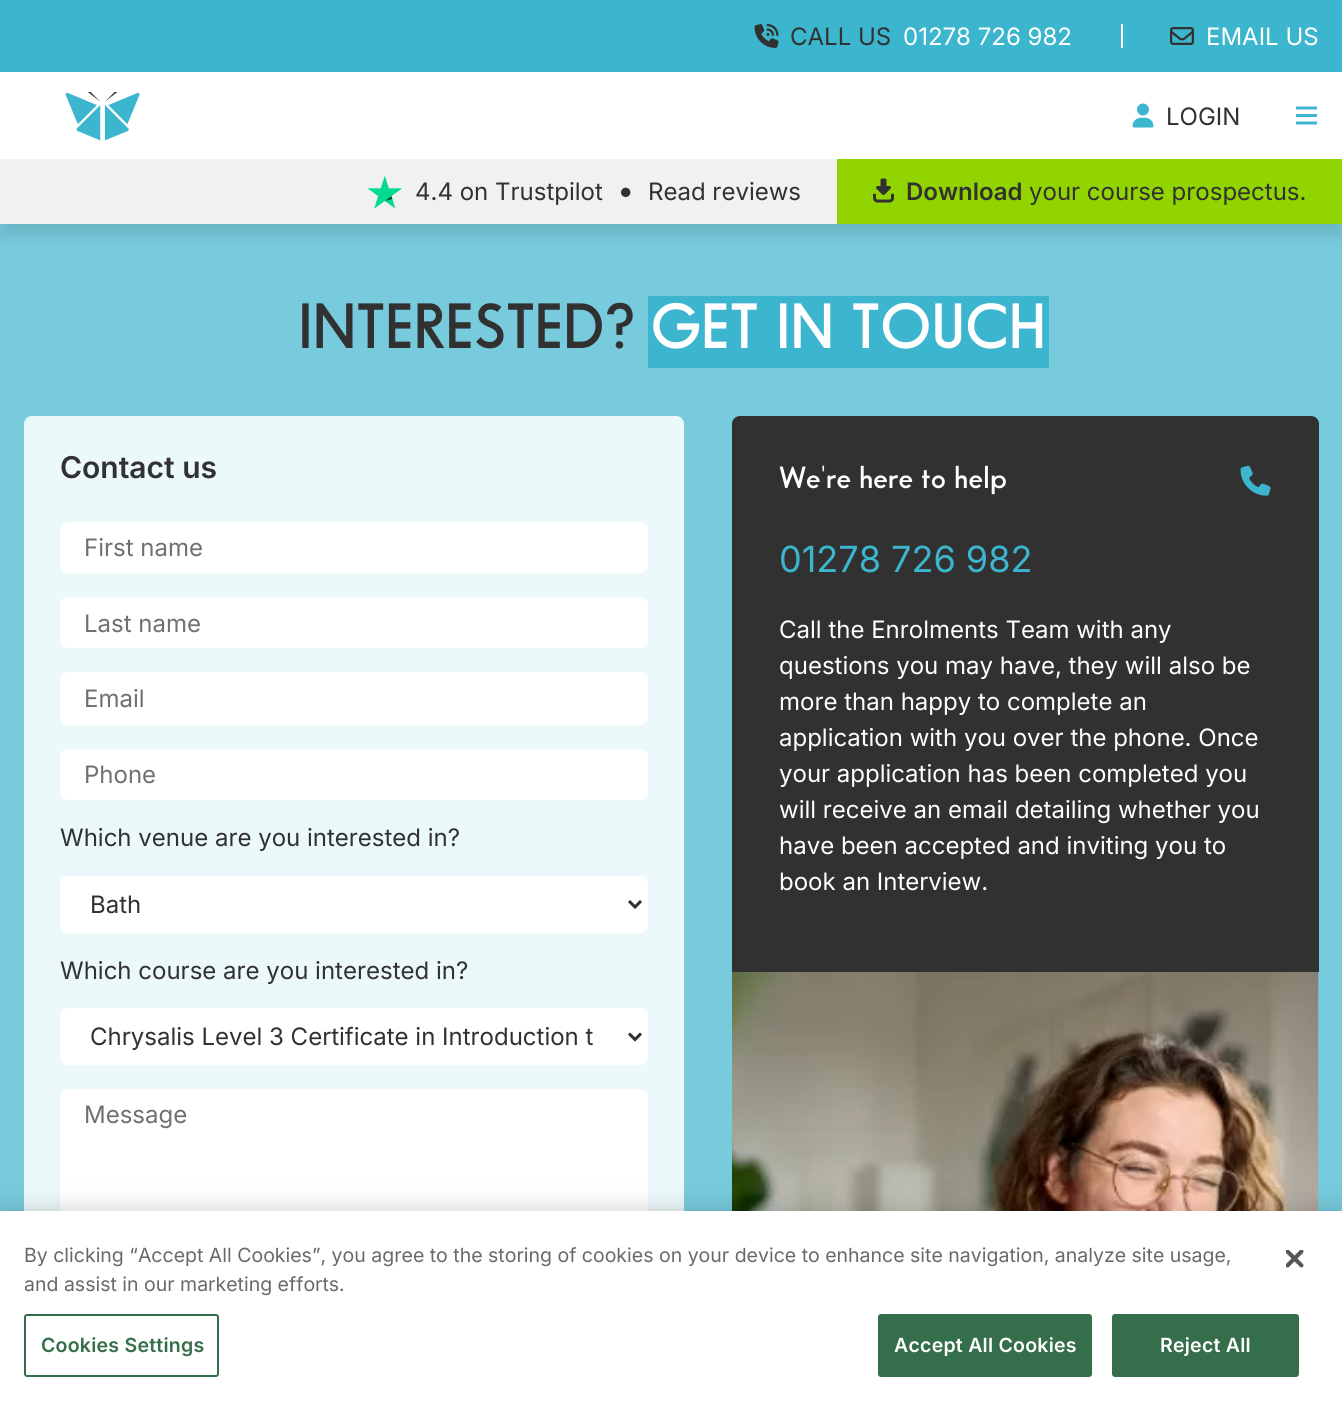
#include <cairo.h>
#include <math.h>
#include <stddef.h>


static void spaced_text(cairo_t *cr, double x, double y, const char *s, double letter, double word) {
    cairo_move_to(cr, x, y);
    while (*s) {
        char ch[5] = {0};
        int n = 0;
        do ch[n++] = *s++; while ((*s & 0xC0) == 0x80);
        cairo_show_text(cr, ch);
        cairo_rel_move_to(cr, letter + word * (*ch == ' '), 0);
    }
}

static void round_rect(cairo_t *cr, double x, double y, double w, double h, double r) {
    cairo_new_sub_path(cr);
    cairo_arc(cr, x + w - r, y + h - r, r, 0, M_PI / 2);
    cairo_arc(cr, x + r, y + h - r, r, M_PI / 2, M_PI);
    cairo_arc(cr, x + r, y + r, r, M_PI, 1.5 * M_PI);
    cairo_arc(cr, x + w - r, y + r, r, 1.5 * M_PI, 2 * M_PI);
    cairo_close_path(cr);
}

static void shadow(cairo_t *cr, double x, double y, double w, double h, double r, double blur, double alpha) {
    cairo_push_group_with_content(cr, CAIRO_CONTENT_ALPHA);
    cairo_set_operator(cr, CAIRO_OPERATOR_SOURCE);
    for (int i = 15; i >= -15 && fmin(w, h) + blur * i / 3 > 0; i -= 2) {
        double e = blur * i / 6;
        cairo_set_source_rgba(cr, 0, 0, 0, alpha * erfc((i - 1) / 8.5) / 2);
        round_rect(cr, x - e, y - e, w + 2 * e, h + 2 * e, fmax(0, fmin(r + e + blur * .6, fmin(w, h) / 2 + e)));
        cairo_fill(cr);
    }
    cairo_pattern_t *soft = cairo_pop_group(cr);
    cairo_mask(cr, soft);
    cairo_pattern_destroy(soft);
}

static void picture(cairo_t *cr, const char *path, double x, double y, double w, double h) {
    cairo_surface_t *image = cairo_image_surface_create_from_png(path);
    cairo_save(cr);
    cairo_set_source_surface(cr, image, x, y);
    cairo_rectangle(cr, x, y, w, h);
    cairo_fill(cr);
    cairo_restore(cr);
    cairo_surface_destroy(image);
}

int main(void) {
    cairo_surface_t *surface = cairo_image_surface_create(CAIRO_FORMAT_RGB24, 1342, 1407);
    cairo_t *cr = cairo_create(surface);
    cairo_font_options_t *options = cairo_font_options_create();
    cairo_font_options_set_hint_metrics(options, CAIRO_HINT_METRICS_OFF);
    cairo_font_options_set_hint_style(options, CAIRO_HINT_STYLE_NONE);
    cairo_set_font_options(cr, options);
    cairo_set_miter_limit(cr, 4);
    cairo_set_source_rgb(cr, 1, 1, 1);
    cairo_paint(cr);
    cairo_set_source_rgb(cr, 0.235, 0.714, 0.808);
    cairo_rectangle(cr, 0, 0, 1342, 72);
    cairo_fill(cr);
    picture(cr, "img1.png", 754, 24, 25, 24);
    cairo_select_font_face(cr, "Inter", CAIRO_FONT_SLANT_NORMAL, CAIRO_FONT_WEIGHT_NORMAL);
    cairo_set_font_size(cr, 24);
    cairo_set_source_rgb(cr, 0.192, 0.192, 0.192);
    cairo_move_to(cr, 790, 45);
    cairo_show_text(cr, "CALL US");
    cairo_set_source_rgb(cr, 1, 1, 1);
    cairo_move_to(cr, 903, 45);
    cairo_show_text(cr, "01278 726 982");
    cairo_rectangle(cr, 1121, 24, 2, 24);
    cairo_fill(cr);
    picture(cr, "img2.png", 1170, 27, 24, 18);
    cairo_move_to(cr, 1206, 45);
    cairo_show_text(cr, "EMAIL US");
    picture(cr, "img3.png", 65, 92, 75, 49);
    picture(cr, "img4.png", 1132, 103, 22, 25);
    cairo_set_source_rgb(cr, 0.192, 0.192, 0.192);
    cairo_move_to(cr, 1166, 125);
    cairo_show_text(cr, "LOGIN");
    picture(cr, "img5.png", 1296, 106, 21, 19);
    cairo_set_source_rgb(cr, 0.467, 0.796, 0.867);
    cairo_rectangle(cr, 0, 224, 1342, 987);
    cairo_fill(cr);
    cairo_set_source_rgb(cr, 0, 0, 0);
    shadow(cr, 0, 171, 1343, 65, 0, 6, 0.1);
    cairo_set_source_rgb(cr, 0.949, 0.945, 0.949);
    cairo_rectangle(cr, 0, 159, 837, 65);
    cairo_fill(cr);
    picture(cr, "img6.png", 368, 176, 34, 33);
    cairo_set_source_rgb(cr, 0.192, 0.192, 0.192);
    cairo_move_to(cr, 415, 200);
    cairo_show_text(cr, "4.4 on Trustpilot");
    picture(cr, "img7.png", 621, 187, 10, 11);
    cairo_move_to(cr, 648, 200);
    cairo_show_text(cr, "Read reviews");
    cairo_set_source_rgb(cr, 0.573, 0.831, 0);
    cairo_rectangle(cr, 837, 159, 505, 65);
    cairo_fill(cr);
    picture(cr, "img8.png", 873, 178, 21, 25);
    cairo_select_font_face(cr, "Inter SemiBold", CAIRO_FONT_SLANT_NORMAL, CAIRO_FONT_WEIGHT_NORMAL);
    cairo_set_source_rgb(cr, 0.192, 0.192, 0.192);
    cairo_move_to(cr, 906, 200);
    cairo_show_text(cr, "Download");
    cairo_select_font_face(cr, "Inter", CAIRO_FONT_SLANT_NORMAL, CAIRO_FONT_WEIGHT_NORMAL);
    cairo_move_to(cr, 1029, 200);
    cairo_show_text(cr, "your course prospectus.");
    cairo_select_font_face(cr, "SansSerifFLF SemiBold", CAIRO_FONT_SLANT_NORMAL, CAIRO_FONT_WEIGHT_NORMAL);
    cairo_set_font_size(cr, 62.5);
    cairo_move_to(cr, 298, 348);
    cairo_show_text(cr, "INTERESTED?");
    cairo_set_source_rgb(cr, 0.235, 0.714, 0.808);
    cairo_rectangle(cr, 648, 296, 401, 72);
    cairo_fill(cr);
    cairo_set_source_rgb(cr, 1, 1, 1);
    cairo_move_to(cr, 651, 348);
    cairo_show_text(cr, "GET IN TOUCH");
    cairo_set_source_rgb(cr, 0.925, 0.973, 0.98);
    round_rect(cr, 24, 416, 660, 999, 8);
    cairo_fill(cr);
    cairo_select_font_face(cr, "Inter SemiBold", CAIRO_FONT_SLANT_NORMAL, CAIRO_FONT_WEIGHT_NORMAL);
    cairo_set_font_size(cr, 30);
    cairo_set_source_rgb(cr, 0.192, 0.192, 0.192);
    cairo_move_to(cr, 60, 478);
    cairo_show_text(cr, "Contact us");
    cairo_set_source_rgb(cr, 1, 1, 1);
    round_rect(cr, 60, 522, 588, 51, 8);
    cairo_fill(cr);
    cairo_select_font_face(cr, "Inter", CAIRO_FONT_SLANT_NORMAL, CAIRO_FONT_WEIGHT_NORMAL);
    cairo_set_font_size(cr, 24);
    cairo_set_source_rgb(cr, 0.439, 0.439, 0.439);
    cairo_move_to(cr, 84, 556);
    cairo_show_text(cr, "First name");
    cairo_set_source_rgb(cr, 1, 1, 1);
    round_rect(cr, 60, 597, 588, 51, 8);
    cairo_fill(cr);
    cairo_set_source_rgb(cr, 0.439, 0.439, 0.439);
    cairo_move_to(cr, 84, 632);
    cairo_show_text(cr, "Last name");
    cairo_set_source_rgb(cr, 1, 1, 1);
    round_rect(cr, 60, 672, 588, 53, 8);
    cairo_fill(cr);
    cairo_set_source_rgb(cr, 0.439, 0.439, 0.439);
    cairo_move_to(cr, 84, 707);
    cairo_show_text(cr, "Email");
    cairo_set_source_rgb(cr, 1, 1, 1);
    round_rect(cr, 60, 749, 588, 51, 8);
    cairo_fill(cr);
    cairo_set_source_rgb(cr, 0.439, 0.439, 0.439);
    cairo_move_to(cr, 84, 783);
    cairo_show_text(cr, "Phone");
    cairo_set_source_rgb(cr, 0.192, 0.192, 0.192);
    cairo_move_to(cr, 60, 846);
    cairo_show_text(cr, "Which venue are you interested in?");
    cairo_set_source_rgb(cr, 1, 1, 1);
    round_rect(cr, 60, 876, 588, 57, 8);
    cairo_fill(cr);
    cairo_new_path(cr);
    cairo_move_to(cr, 629, 901);
    cairo_line_to(cr, 635, 907);
    cairo_line_to(cr, 641, 901);
    cairo_set_source_rgb(cr, 0.192, 0.192, 0.192);
    cairo_set_line_width(cr, 3);
    cairo_stroke(cr);
    cairo_move_to(cr, 90, 913);
    cairo_show_text(cr, "Bath");
    cairo_move_to(cr, 60, 979);
    cairo_show_text(cr, "Which course are you interested in?");
    cairo_set_source_rgb(cr, 1, 1, 1);
    round_rect(cr, 60, 1008, 588, 57, 8);
    cairo_fill(cr);
    cairo_new_path(cr);
    cairo_move_to(cr, 629, 1033.5);
    cairo_line_to(cr, 635, 1039.5);
    cairo_line_to(cr, 641, 1033.5);
    cairo_set_source_rgb(cr, 0.192, 0.192, 0.192);
    cairo_stroke(cr);
    cairo_move_to(cr, 90, 1045);
    cairo_show_text(cr, "Chrysalis Level 3 Certificate in Introduction t");
    cairo_set_source_rgb(cr, 1, 1, 1);
    round_rect(cr, 60, 1089, 588, 189, 8);
    cairo_fill(cr);
    cairo_set_source_rgb(cr, 0.439, 0.439, 0.439);
    cairo_move_to(cr, 84, 1123);
    cairo_show_text(cr, "Message");
    cairo_set_source_rgb(cr, 0.192, 0.192, 0.192);
    cairo_new_path(cr);
    cairo_move_to(cr, 740, 416);
    cairo_line_to(cr, 1311, 416);
    cairo_curve_to(cr, 1315.5, 416, 1319, 419.5, 1319, 424);
    cairo_line_to(cr, 1319, 972);
    cairo_line_to(cr, 732, 972);
    cairo_line_to(cr, 732, 424);
    cairo_curve_to(cr, 732, 419.5, 735.5, 416, 740, 416);
    cairo_close_path(cr);
    cairo_fill(cr);
    cairo_select_font_face(cr, "SansSerifFLF SemiBold", CAIRO_FONT_SLANT_NORMAL, CAIRO_FONT_WEIGHT_NORMAL);
    cairo_set_font_size(cr, 30);
    cairo_set_source_rgb(cr, 1, 1, 1);
    cairo_move_to(cr, 779, 488);
    cairo_show_text(cr, "We're here to help");
    picture(cr, "img9.png", 1240, 465, 31, 31);
    cairo_select_font_face(cr, "Inter", CAIRO_FONT_SLANT_NORMAL, CAIRO_FONT_WEIGHT_NORMAL);
    cairo_set_font_size(cr, 36);
    cairo_set_source_rgb(cr, 0.235, 0.714, 0.808);
    cairo_move_to(cr, 779, 572);
    cairo_show_text(cr, "01278 726 982");
    cairo_set_font_size(cr, 24);
    cairo_set_source_rgb(cr, 1, 1, 1);
    cairo_move_to(cr, 779, 638);
    cairo_show_text(cr, "Call the Enrolments Team with any");
    cairo_move_to(cr, 779, 674);
    cairo_show_text(cr, "questions you may have, they will also be");
    cairo_move_to(cr, 779, 710);
    cairo_show_text(cr, "more than happy to complete an");
    cairo_move_to(cr, 779, 746);
    cairo_show_text(cr, "application with you over the phone. Once");
    cairo_move_to(cr, 779, 782);
    cairo_show_text(cr, "your application has been completed you");
    cairo_move_to(cr, 779, 818);
    cairo_show_text(cr, "will receive an email detailing whether you");
    cairo_move_to(cr, 779, 854);
    cairo_show_text(cr, "have been accepted and inviting you to");
    cairo_move_to(cr, 779, 890);
    cairo_show_text(cr, "book an Interview.");
    picture(cr, "img10.png", 732, 972, 587, 239);
    cairo_set_source_rgb(cr, 0, 0, 0);
    shadow(cr, 0, 1211, 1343, 196, 0, 13.5, 0.2);
    cairo_set_source_rgb(cr, 1, 1, 1);
    cairo_rectangle(cr, 0, 1211, 1342, 196);
    cairo_fill(cr);
    cairo_set_font_size(cr, 19.5);
    cairo_set_source_rgb(cr, 0.412, 0.412, 0.412);
    cairo_move_to(cr, 24, 1262);
    cairo_show_text(cr, "By clicking “Accept All Cookies”, you agree to the storing of cookies on your device to enhance site navigation, analyze site usage,");
    cairo_move_to(cr, 24, 1291);
    cairo_show_text(cr, "and assist in our marketing efforts.");
    round_rect(cr, 25, 1315, 193, 61, 2);
    cairo_set_source_rgb(cr, 0.204, 0.431, 0.29);
    cairo_set_line_width(cr, 2);
    cairo_stroke(cr);
    cairo_select_font_face(cr, "Inter SemiBold", CAIRO_FONT_SLANT_NORMAL, CAIRO_FONT_WEIGHT_NORMAL);
    spaced_text(cr, 41, 1352, "Cookies Settings", 0.25, 0);
    round_rect(cr, 879, 1315, 212, 61, 2);
    cairo_fill_preserve(cr);
    cairo_stroke(cr);
    cairo_set_source_rgb(cr, 1, 1, 1);
    spaced_text(cr, 894, 1352, "Accept All Cookies", 0.25, 0);
    cairo_set_source_rgb(cr, 0.204, 0.431, 0.29);
    round_rect(cr, 1113, 1315, 185, 61, 2);
    cairo_fill_preserve(cr);
    cairo_stroke(cr);
    cairo_set_source_rgb(cr, 1, 1, 1);
    spaced_text(cr, 1160, 1352, "Reject All", 0.25, 0);
    picture(cr, "img11.png", 1286, 1250, 18, 18);
    cairo_surface_write_to_png(surface, "page.png");
    cairo_font_options_destroy(options);
    cairo_destroy(cr);
    cairo_surface_destroy(surface);
    return 0;
}
